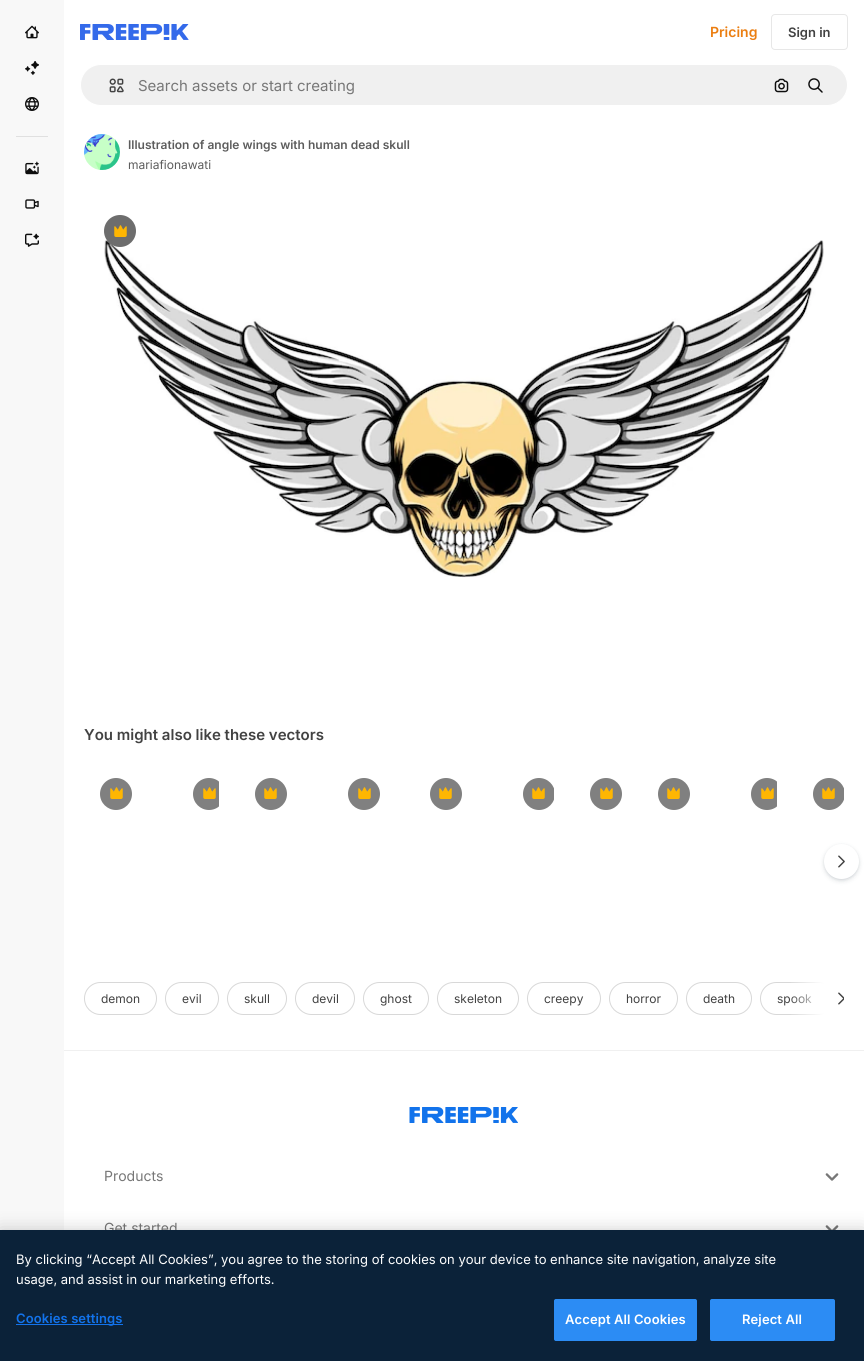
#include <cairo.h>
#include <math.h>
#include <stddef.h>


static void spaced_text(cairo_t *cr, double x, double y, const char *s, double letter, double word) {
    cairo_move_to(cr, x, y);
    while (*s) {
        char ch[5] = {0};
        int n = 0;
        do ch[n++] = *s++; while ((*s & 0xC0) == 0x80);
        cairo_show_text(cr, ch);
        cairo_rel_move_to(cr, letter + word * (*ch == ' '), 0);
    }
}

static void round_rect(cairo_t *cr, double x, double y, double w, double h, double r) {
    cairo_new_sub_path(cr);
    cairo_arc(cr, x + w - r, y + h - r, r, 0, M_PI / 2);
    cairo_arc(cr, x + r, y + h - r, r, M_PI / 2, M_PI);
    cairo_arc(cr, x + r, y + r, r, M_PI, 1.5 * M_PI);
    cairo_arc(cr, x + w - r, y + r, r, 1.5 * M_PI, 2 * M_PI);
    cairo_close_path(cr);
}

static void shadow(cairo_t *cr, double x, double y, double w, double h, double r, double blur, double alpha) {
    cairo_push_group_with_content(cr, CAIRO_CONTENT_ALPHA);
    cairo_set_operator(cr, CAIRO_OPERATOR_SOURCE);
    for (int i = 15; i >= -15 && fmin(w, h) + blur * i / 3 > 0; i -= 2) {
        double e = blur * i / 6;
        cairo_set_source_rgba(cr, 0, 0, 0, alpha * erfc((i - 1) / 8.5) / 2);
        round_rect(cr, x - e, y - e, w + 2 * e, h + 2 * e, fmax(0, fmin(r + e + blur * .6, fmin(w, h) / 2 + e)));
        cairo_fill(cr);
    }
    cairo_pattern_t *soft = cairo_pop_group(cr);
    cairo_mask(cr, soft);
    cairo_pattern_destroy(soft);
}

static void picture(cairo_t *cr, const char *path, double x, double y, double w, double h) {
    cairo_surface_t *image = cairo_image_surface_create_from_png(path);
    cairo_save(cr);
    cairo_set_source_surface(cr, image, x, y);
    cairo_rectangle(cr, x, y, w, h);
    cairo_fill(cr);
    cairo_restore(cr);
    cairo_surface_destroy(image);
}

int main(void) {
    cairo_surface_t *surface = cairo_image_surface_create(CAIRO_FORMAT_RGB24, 864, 1361);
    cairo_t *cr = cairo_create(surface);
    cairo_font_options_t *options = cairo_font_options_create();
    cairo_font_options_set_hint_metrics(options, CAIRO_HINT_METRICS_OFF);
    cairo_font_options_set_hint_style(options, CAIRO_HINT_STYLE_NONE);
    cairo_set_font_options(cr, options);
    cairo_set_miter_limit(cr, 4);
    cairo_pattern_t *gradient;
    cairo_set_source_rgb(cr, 1, 1, 1);
    cairo_paint(cr);
    cairo_set_source_rgb(cr, 0.969, 0.969, 0.969);
    cairo_rectangle(cr, 0, 0, 64, 1230);
    cairo_fill(cr);
    picture(cr, "img1.png", 25, 25, 14, 14);
    picture(cr, "img2.png", 25, 61, 14, 14);
    picture(cr, "img3.png", 25, 97, 14, 14);
    cairo_set_source_rgb(cr, 0.878, 0.878, 0.878);
    cairo_rectangle(cr, 16, 136, 32, 1);
    cairo_fill(cr);
    picture(cr, "img4.png", 25, 161, 14, 14);
    picture(cr, "img5.png", 25, 199, 14, 10);
    picture(cr, "img6.png", 25, 233, 14, 14);
    picture(cr, "img7.png", 80, 24, 109, 16);
    cairo_select_font_face(cr, "Inter SemiBold", CAIRO_FONT_SLANT_NORMAL, CAIRO_FONT_WEIGHT_NORMAL);
    cairo_set_font_size(cr, 14);
    cairo_set_source_rgb(cr, 0.918, 0.494, 0.067);
    cairo_move_to(cr, 710, 37);
    cairo_show_text(cr, "Pricing");
    round_rect(cr, 771.5, 14.5, 76, 35, 3.5);
    cairo_set_source_rgb(cr, 0.906, 0.906, 0.906);
    cairo_set_line_width(cr, 1);
    cairo_stroke(cr);
    cairo_set_font_size(cr, 13);
    cairo_set_source_rgb(cr, 0.259, 0.259, 0.259);
    cairo_move_to(cr, 788, 37);
    cairo_show_text(cr, "Sign in");
    cairo_set_source_rgb(cr, 0.941, 0.941, 0.941);
    round_rect(cr, 80.5, 64.5, 767, 41, 20.5);
    cairo_fill_preserve(cr);
    cairo_set_source_rgb(cr, 1, 1, 1);
    cairo_stroke(cr);
    picture(cr, "img8.png", 109, 78, 15, 15);
    cairo_select_font_face(cr, "Inter", CAIRO_FONT_SLANT_NORMAL, CAIRO_FONT_WEIGHT_NORMAL);
    cairo_set_font_size(cr, 15);
    cairo_set_source_rgb(cr, 0.467, 0.467, 0.467);
    cairo_move_to(cr, 138, 91);
    cairo_show_text(cr, "Search assets or start creating");
    picture(cr, "img9.png", 774, 78, 15, 15);
    picture(cr, "img10.png", 808, 78, 15, 15);
    picture(cr, "img11.png", 84, 134, 36, 36);
    cairo_select_font_face(cr, "Inter SemiBold", CAIRO_FONT_SLANT_NORMAL, CAIRO_FONT_WEIGHT_NORMAL);
    cairo_set_font_size(cr, 12);
    cairo_set_source_rgb(cr, 0.361, 0.361, 0.361);
    cairo_move_to(cr, 128, 149);
    cairo_show_text(cr, "Illustration of angle wings with human dead skull");
    cairo_select_font_face(cr, "Inter", CAIRO_FONT_SLANT_NORMAL, CAIRO_FONT_WEIGHT_NORMAL);
    cairo_move_to(cr, 128, 169);
    cairo_show_text(cr, "mariafionawati");
    picture(cr, "img13.png", 104, 240, 720, 338);
    cairo_set_source_rgba(cr, 0.051, 0.051, 0.051, 0.6);
    cairo_arc(cr, 120, 231, 16, 0, 2 * M_PI);
    cairo_fill(cr);
    picture(cr, "img12.png", 114, 225, 13, 12);
    cairo_select_font_face(cr, "Inter SemiBold", CAIRO_FONT_SLANT_NORMAL, CAIRO_FONT_WEIGHT_NORMAL);
    cairo_set_font_size(cr, 15);
    cairo_set_source_rgb(cr, 0.259, 0.259, 0.259);
    cairo_move_to(cr, 84, 740);
    cairo_show_text(cr, "You might also like these vectors");
    cairo_set_source_rgb(cr, 0.502, 0.502, 0.502);
    cairo_new_path(cr);
    cairo_arc(cr, 116, 794, 16, 0, 2 * M_PI);
    cairo_fill(cr);
    picture(cr, "img14.png", 110, 787, 13, 12);
    cairo_save(cr);
    round_rect(cr, 177, 762, 42, 200, 16);
    cairo_clip(cr);
    cairo_arc(cr, 209, 794, 16, 0, 2 * M_PI);
    cairo_fill(cr);
    cairo_restore(cr);
    picture(cr, "img14.png", 203, 787, 13, 12);
    cairo_arc(cr, 271, 794, 16, 0, 2 * M_PI);
    cairo_fill(cr);
    picture(cr, "img14.png", 264, 787, 13, 12);
    cairo_arc(cr, 364, 794, 16, 0, 2 * M_PI);
    cairo_fill(cr);
    picture(cr, "img14.png", 358, 787, 13, 12);
    cairo_arc(cr, 446, 794, 16, 0, 2 * M_PI);
    cairo_fill(cr);
    picture(cr, "img14.png", 439, 787, 13, 12);
    cairo_save(cr);
    round_rect(cr, 507, 762, 47, 200, 16);
    cairo_clip(cr);
    cairo_arc(cr, 539, 794, 16, 0, 2 * M_PI);
    cairo_fill(cr);
    cairo_restore(cr);
    picture(cr, "img14.png", 532, 787, 13, 12);
    cairo_arc(cr, 606, 794, 16, 0, 2 * M_PI);
    cairo_fill(cr);
    picture(cr, "img14.png", 600, 787, 13, 12);
    cairo_arc(cr, 674, 794, 16, 0, 2 * M_PI);
    cairo_fill(cr);
    picture(cr, "img14.png", 667, 787, 13, 12);
    cairo_save(cr);
    round_rect(cr, 735, 762, 42, 200, 16);
    cairo_clip(cr);
    cairo_arc(cr, 767, 794, 16, 0, 2 * M_PI);
    cairo_fill(cr);
    cairo_restore(cr);
    picture(cr, "img14.png", 761, 787, 13, 12);
    cairo_save(cr);
    cairo_rectangle(cr, 84, 762, 760, 200);
    cairo_clip(cr);
    cairo_arc(cr, 829, 794, 16, 0, 2 * M_PI);
    cairo_fill(cr);
    cairo_restore(cr);
    picture(cr, "img14.png", 822, 787, 13, 12);
    cairo_set_source_rgb(cr, 0.216, 0.286, 0.341);
    shadow(cr, 824, 846, 35, 35, 17.5, 2.5, 0.15);
    shadow(cr, 824, 845, 35, 35, 17.5, 1, 0.1);
    cairo_set_source_rgb(cr, 1, 1, 1);
    cairo_arc(cr, 841.5, 861.5, 17.5, 0, 2 * M_PI);
    cairo_fill(cr);
    picture(cr, "img15.png", 838, 855, 7, 13);
    round_rect(cr, 84.5, 982.5, 72, 32, 16);
    cairo_set_source_rgb(cr, 0.847, 0.847, 0.847);
    cairo_stroke(cr);
    cairo_select_font_face(cr, "Inter", CAIRO_FONT_SLANT_NORMAL, CAIRO_FONT_WEIGHT_NORMAL);
    cairo_set_font_size(cr, 12);
    cairo_set_source_rgb(cr, 0.259, 0.259, 0.259);
    cairo_move_to(cr, 101, 1003);
    cairo_show_text(cr, "demon");
    round_rect(cr, 165.5, 982.5, 53, 32, 16);
    cairo_set_source_rgb(cr, 0.847, 0.847, 0.847);
    cairo_stroke(cr);
    cairo_set_source_rgb(cr, 0.259, 0.259, 0.259);
    cairo_move_to(cr, 182, 1003);
    cairo_show_text(cr, "evil");
    round_rect(cr, 227.5, 982.5, 59, 32, 16);
    cairo_set_source_rgb(cr, 0.847, 0.847, 0.847);
    cairo_stroke(cr);
    cairo_set_source_rgb(cr, 0.259, 0.259, 0.259);
    cairo_move_to(cr, 244, 1003);
    cairo_show_text(cr, "skull");
    round_rect(cr, 295.5, 982.5, 59, 32, 16);
    cairo_set_source_rgb(cr, 0.847, 0.847, 0.847);
    cairo_stroke(cr);
    cairo_set_source_rgb(cr, 0.259, 0.259, 0.259);
    cairo_move_to(cr, 312, 1003);
    cairo_show_text(cr, "devil");
    round_rect(cr, 363.5, 982.5, 65, 32, 16);
    cairo_set_source_rgb(cr, 0.847, 0.847, 0.847);
    cairo_stroke(cr);
    cairo_set_source_rgb(cr, 0.259, 0.259, 0.259);
    cairo_move_to(cr, 380, 1003);
    cairo_show_text(cr, "ghost");
    round_rect(cr, 437.5, 982.5, 81, 32, 16);
    cairo_set_source_rgb(cr, 0.847, 0.847, 0.847);
    cairo_stroke(cr);
    cairo_set_source_rgb(cr, 0.259, 0.259, 0.259);
    cairo_move_to(cr, 454, 1003);
    cairo_show_text(cr, "skeleton");
    round_rect(cr, 527.5, 982.5, 73, 32, 16);
    cairo_set_source_rgb(cr, 0.847, 0.847, 0.847);
    cairo_stroke(cr);
    cairo_set_source_rgb(cr, 0.259, 0.259, 0.259);
    cairo_move_to(cr, 544, 1003);
    cairo_show_text(cr, "creepy");
    round_rect(cr, 609.5, 982.5, 68, 32, 16);
    cairo_set_source_rgb(cr, 0.847, 0.847, 0.847);
    cairo_stroke(cr);
    cairo_set_source_rgb(cr, 0.259, 0.259, 0.259);
    cairo_move_to(cr, 626, 1003);
    cairo_show_text(cr, "horror");
    round_rect(cr, 686.5, 982.5, 65, 32, 16);
    cairo_set_source_rgb(cr, 0.847, 0.847, 0.847);
    cairo_stroke(cr);
    cairo_set_source_rgb(cr, 0.259, 0.259, 0.259);
    cairo_move_to(cr, 703, 1003);
    cairo_show_text(cr, "death");
    round_rect(cr, 760.5, 982.5, 74, 32, 16);
    cairo_set_source_rgb(cr, 0.847, 0.847, 0.847);
    cairo_stroke(cr);
    cairo_set_source_rgb(cr, 0.259, 0.259, 0.259);
    cairo_move_to(cr, 777, 1003);
    cairo_show_text(cr, "spook");
    cairo_set_source_rgb(cr, 1, 1, 1);
    cairo_rectangle(cr, 824, 983, 11, 31);
    cairo_fill(cr);
    gradient = cairo_pattern_create_linear(824, 999, 789, 999);
    cairo_pattern_add_color_stop_rgba(gradient, 0, 1, 1, 1, 1);
    cairo_pattern_add_color_stop_rgba(gradient, 1, 1, 1, 1, 0);
    cairo_set_source(cr, gradient);
    cairo_pattern_destroy(gradient);
    cairo_rectangle(cr, 791, 982, 33, 33);
    cairo_fill(cr);
    picture(cr, "img16.png", 838, 992, 6, 13);
    cairo_set_source_rgb(cr, 0.941, 0.941, 0.941);
    cairo_rectangle(cr, 64, 1050, 800, 1);
    cairo_fill(cr);
    picture(cr, "img17.png", 409, 1107, 109, 16);
    cairo_set_font_size(cr, 14);
    cairo_set_source_rgb(cr, 0.467, 0.467, 0.467);
    cairo_move_to(cr, 104, 1181);
    cairo_show_text(cr, "Products");
    picture(cr, "img18.png", 825, 1173, 14, 8);
    cairo_move_to(cr, 104, 1233);
    cairo_show_text(cr, "Get started");
    picture(cr, "img19.png", 825, 1225, 14, 5);
    cairo_set_source_rgb(cr, 0, 0, 0);
    shadow(cr, 0, 1230, 864, 131, 0, 9, 0.2);
    cairo_set_source_rgb(cr, 0.043, 0.133, 0.224);
    cairo_rectangle(cr, 0, 1230, 864, 131);
    cairo_fill(cr);
    cairo_set_font_size(cr, 13);
    cairo_set_source_rgb(cr, 1, 1, 1);
    cairo_move_to(cr, 16, 1264);
    cairo_show_text(cr, "By clicking “Accept All Cookies”, you agree to the storing of cookies on your device to enhance site navigation, analyze site");
    cairo_move_to(cr, 16, 1284);
    cairo_show_text(cr, "usage, and assist in our marketing efforts.");
    cairo_set_source_rgb(cr, 0.071, 0.451, 0.922);
    cairo_rectangle(cr, 16, 1324, 107, 1);
    cairo_fill(cr);
    cairo_select_font_face(cr, "Inter SemiBold", CAIRO_FONT_SLANT_NORMAL, CAIRO_FONT_WEIGHT_NORMAL);
    spaced_text(cr, 16, 1323, "Cookies settings", 0.1, 0);
    cairo_set_source_rgb(cr, 0.173, 0.549, 0.957);
    round_rect(cr, 554.5, 1299.5, 142, 41, 1.5);
    cairo_fill_preserve(cr);
    cairo_stroke(cr);
    cairo_set_source_rgb(cr, 1, 1, 1);
    spaced_text(cr, 565, 1324, "Accept All Cookies", 0.1, 0);
    cairo_set_source_rgb(cr, 0.173, 0.549, 0.957);
    round_rect(cr, 710.5, 1299.5, 124, 41, 1.5);
    cairo_fill_preserve(cr);
    cairo_stroke(cr);
    cairo_set_source_rgb(cr, 1, 1, 1);
    spaced_text(cr, 742, 1324, "Reject All", 0.1, 0);
    cairo_surface_write_to_png(surface, "page.png");
    cairo_font_options_destroy(options);
    cairo_destroy(cr);
    cairo_surface_destroy(surface);
    return 0;
}
